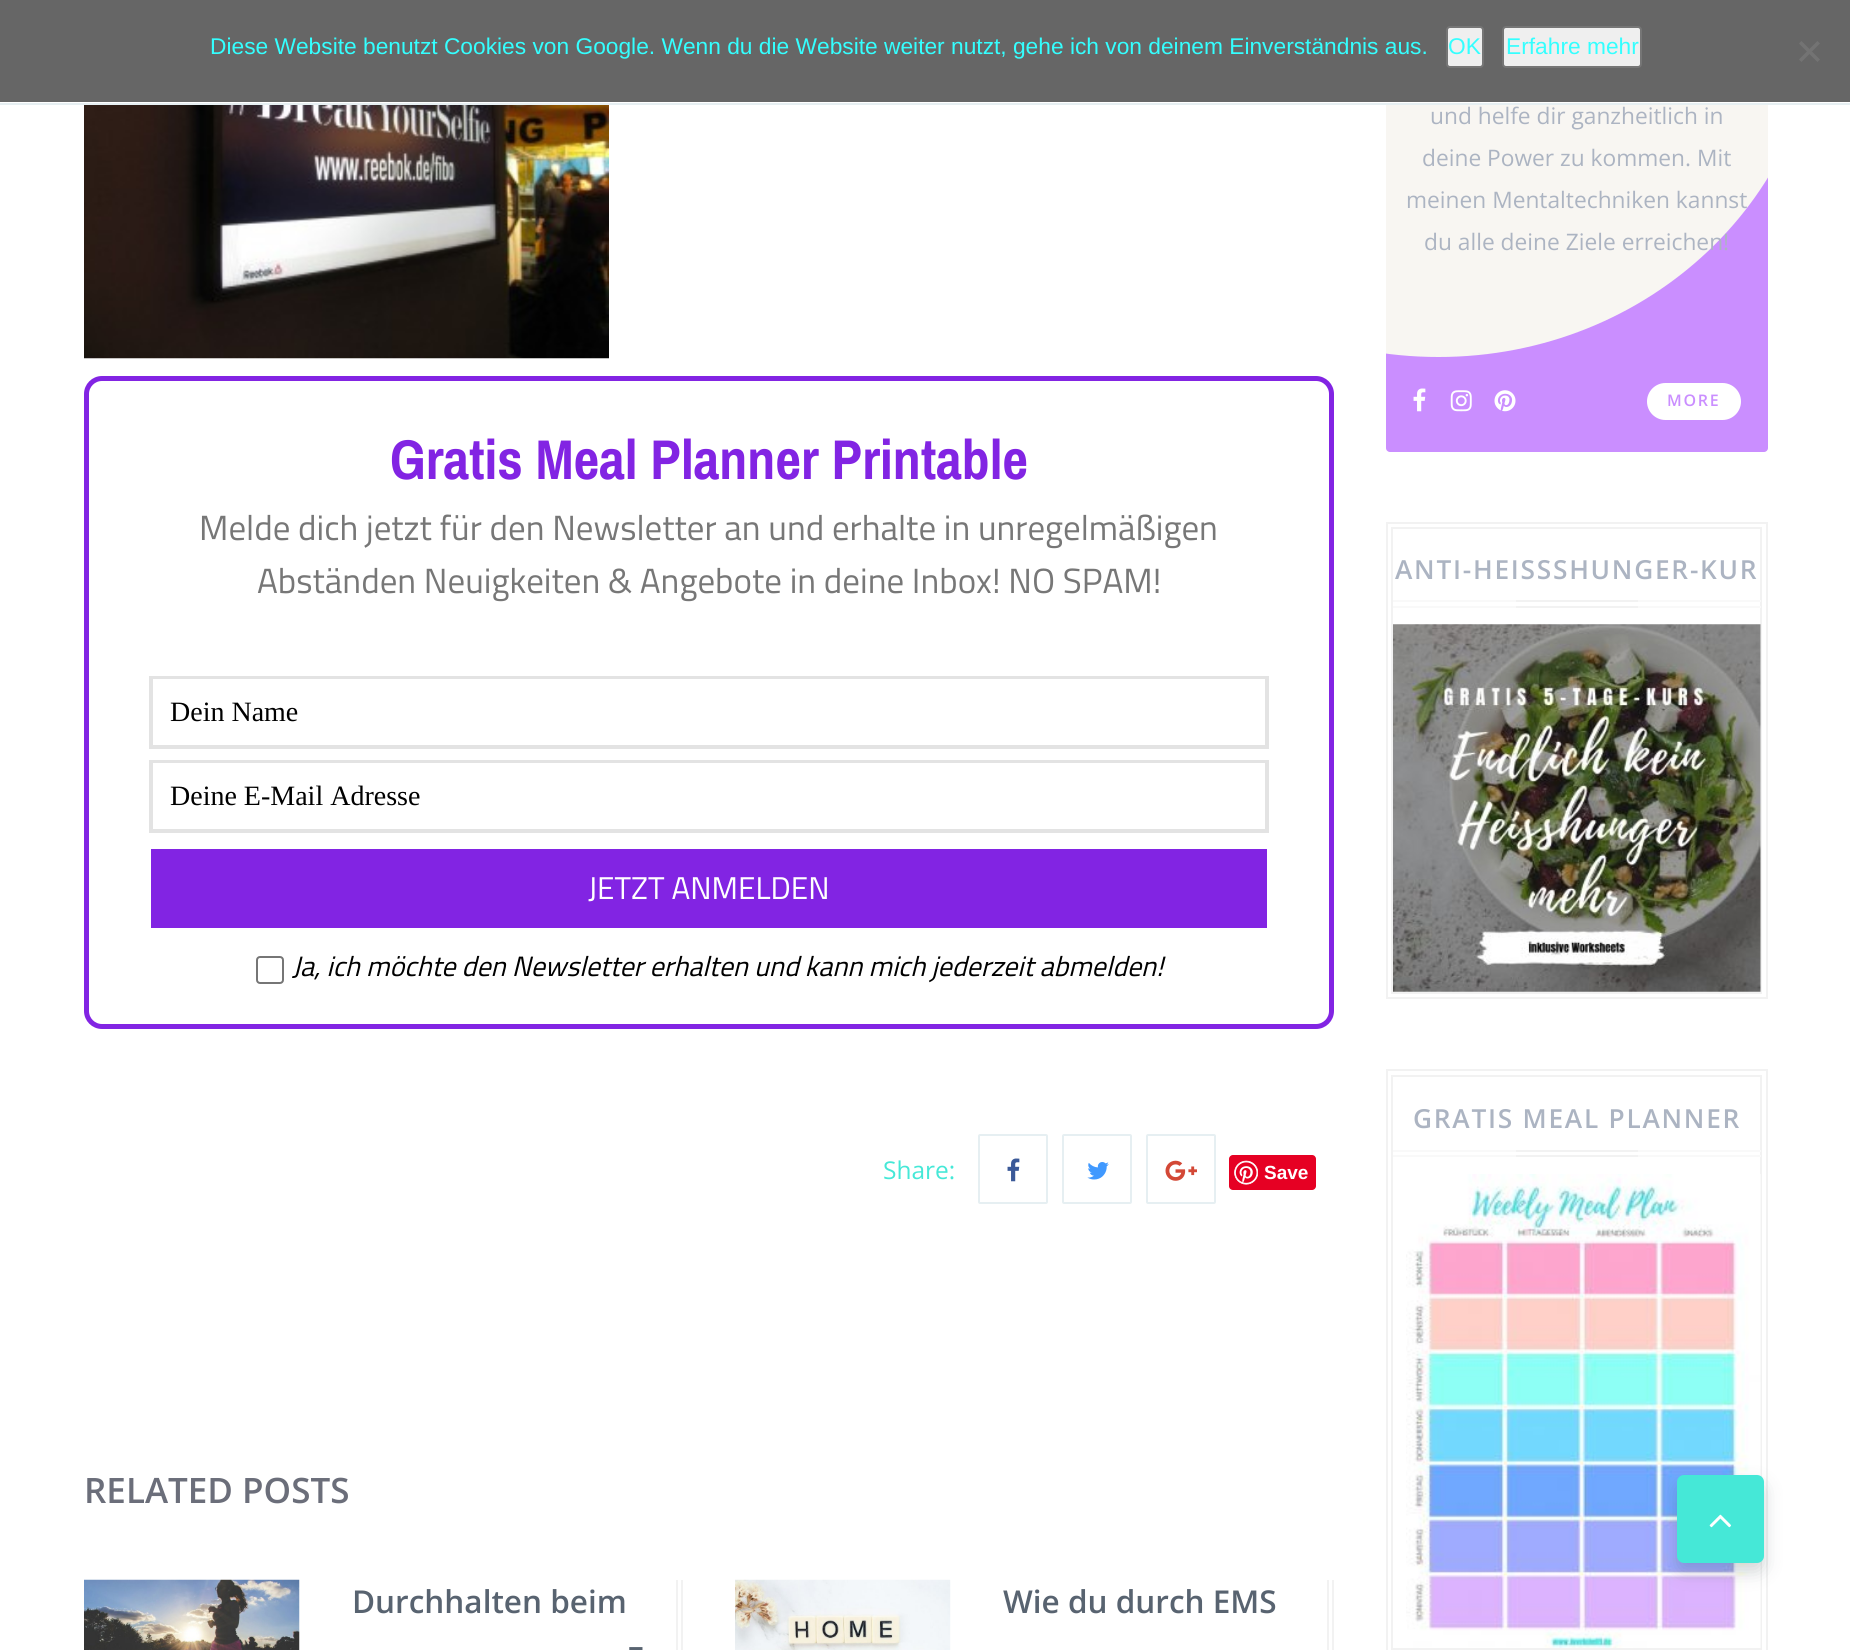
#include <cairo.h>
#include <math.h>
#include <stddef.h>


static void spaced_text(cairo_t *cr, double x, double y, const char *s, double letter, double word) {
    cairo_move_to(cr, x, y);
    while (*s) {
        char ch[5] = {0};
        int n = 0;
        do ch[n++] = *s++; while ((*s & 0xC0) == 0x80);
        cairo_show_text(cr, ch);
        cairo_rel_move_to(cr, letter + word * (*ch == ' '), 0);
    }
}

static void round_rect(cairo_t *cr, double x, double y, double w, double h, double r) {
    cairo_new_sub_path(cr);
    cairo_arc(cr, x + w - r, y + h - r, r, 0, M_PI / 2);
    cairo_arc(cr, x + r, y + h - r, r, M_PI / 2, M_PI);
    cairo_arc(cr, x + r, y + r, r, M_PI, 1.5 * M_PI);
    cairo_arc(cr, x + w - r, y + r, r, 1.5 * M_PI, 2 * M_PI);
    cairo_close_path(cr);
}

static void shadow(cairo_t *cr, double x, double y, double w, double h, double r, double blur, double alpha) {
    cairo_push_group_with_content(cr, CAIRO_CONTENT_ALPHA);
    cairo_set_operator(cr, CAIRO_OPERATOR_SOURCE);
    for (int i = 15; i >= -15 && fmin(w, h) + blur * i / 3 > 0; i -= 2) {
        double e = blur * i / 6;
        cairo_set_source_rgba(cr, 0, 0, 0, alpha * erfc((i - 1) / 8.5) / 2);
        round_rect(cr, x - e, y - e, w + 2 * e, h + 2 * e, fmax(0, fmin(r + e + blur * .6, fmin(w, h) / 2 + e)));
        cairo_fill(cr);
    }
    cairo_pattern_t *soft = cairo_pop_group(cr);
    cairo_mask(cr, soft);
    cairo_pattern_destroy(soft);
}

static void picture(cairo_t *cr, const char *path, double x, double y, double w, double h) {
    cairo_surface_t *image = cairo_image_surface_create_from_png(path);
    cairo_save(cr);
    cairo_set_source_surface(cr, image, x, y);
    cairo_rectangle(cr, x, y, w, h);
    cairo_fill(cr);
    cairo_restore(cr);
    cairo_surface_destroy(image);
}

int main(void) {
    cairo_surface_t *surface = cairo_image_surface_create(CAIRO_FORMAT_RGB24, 1850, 1650);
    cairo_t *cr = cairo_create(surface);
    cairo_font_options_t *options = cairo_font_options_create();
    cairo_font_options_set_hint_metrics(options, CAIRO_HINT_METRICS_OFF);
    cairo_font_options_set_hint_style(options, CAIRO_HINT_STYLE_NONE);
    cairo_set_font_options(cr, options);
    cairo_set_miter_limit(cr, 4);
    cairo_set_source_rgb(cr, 1, 1, 1);
    cairo_paint(cr);
    cairo_set_source_rgb(cr, 0.792, 0.557, 1);
    round_rect(cr, 1386, -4, 382, 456, 4);
    cairo_fill(cr);
    cairo_save(cr);
    cairo_rectangle(cr, 1386, 0, 382, 376);
    cairo_clip(cr);
    cairo_set_source_rgb(cr, 0.969, 0.961, 0.949);
    cairo_new_path(cr);
    cairo_move_to(cr, 1438.5, -367);
    cairo_curve_to(cr, 1649, -367, 1820, -205, 1820, -5);
    cairo_curve_to(cr, 1820, 195, 1649, 357, 1438.5, 357);
    cairo_curve_to(cr, 1228, 357, 1057, 195, 1057, -5);
    cairo_curve_to(cr, 1057, -205, 1228, -367, 1438.5, -367);
    cairo_close_path(cr);
    cairo_fill(cr);
    cairo_restore(cr);
    cairo_set_source_rgb(cr, 0.4, 0.4, 0.4);
    cairo_rectangle(cr, 0, 0, 1850, 102);
    cairo_fill(cr);
    cairo_select_font_face(cr, "Liberation Sans", CAIRO_FONT_SLANT_NORMAL, CAIRO_FONT_WEIGHT_NORMAL);
    cairo_set_font_size(cr, 22.75);
    cairo_set_source_rgb(cr, 0.204, 1, 1);
    cairo_move_to(cr, 210, 54);
    cairo_show_text(cr, "Diese Website benutzt Cookies von Google. Wenn du die Website weiter nutzt, gehe ich von deinem Einverständnis aus.");
    cairo_set_source_rgb(cr, 0.937, 0.937, 0.937);
    round_rect(cr, 1447, 27, 36, 40, 3);
    cairo_fill_preserve(cr);
    cairo_set_source_rgb(cr, 0.463, 0.463, 0.463);
    cairo_stroke(cr);
    cairo_set_source_rgb(cr, 0.204, 1, 1);
    cairo_move_to(cr, 1448, 54);
    cairo_show_text(cr, "OK");
    cairo_set_source_rgb(cr, 0.937, 0.937, 0.937);
    round_rect(cr, 1503, 27, 138, 40, 3);
    cairo_fill_preserve(cr);
    cairo_set_source_rgb(cr, 0.463, 0.463, 0.463);
    cairo_stroke(cr);
    cairo_set_source_rgb(cr, 0.204, 1, 1);
    cairo_move_to(cr, 1506, 54);
    cairo_show_text(cr, "Erfahre mehr");
    cairo_set_source_rgb(cr, 0.451, 0.451, 0.451);
    cairo_new_path(cr);
    cairo_move_to(cr, 1817.5, 41);
    cairo_line_to(cr, 1820, 43.5);
    cairo_line_to(cr, 1801.5, 62);
    cairo_line_to(cr, 1799, 59.5);
    cairo_close_path(cr);
    cairo_fill(cr);
    cairo_new_path(cr);
    cairo_move_to(cr, 1799, 43.5);
    cairo_line_to(cr, 1801.5, 41);
    cairo_line_to(cr, 1820, 59.5);
    cairo_line_to(cr, 1817.5, 62);
    cairo_close_path(cr);
    cairo_fill(cr);
    cairo_set_source_rgb(cr, 1, 1, 1);
    cairo_rectangle(cr, 1386, 102, 382, 1);
    cairo_fill(cr);
    cairo_set_source_rgb(cr, 0.902, 0.937, 0.949);
    cairo_rectangle(cr, 0, 103, 1850, 2);
    cairo_fill(cr);
    picture(cr, "img1.png", 84, 105, 525, 254);
    round_rect(cr, 86.5, 378.5, 1245, 648, 15.5);
    cairo_set_source_rgb(cr, 0.51, 0.141, 0.89);
    cairo_set_line_width(cr, 5);
    cairo_stroke(cr);
    cairo_select_font_face(cr, "Archivo Narrow", CAIRO_FONT_SLANT_NORMAL, CAIRO_FONT_WEIGHT_BOLD);
    cairo_set_font_size(cr, 56);
    cairo_move_to(cr, 390, 479);
    cairo_show_text(cr, "Gratis Meal Planner Printable");
    cairo_select_font_face(cr, "Titillium Web", CAIRO_FONT_SLANT_NORMAL, CAIRO_FONT_WEIGHT_NORMAL);
    cairo_set_font_size(cr, 35);
    cairo_set_source_rgb(cr, 0.467, 0.467, 0.467);
    cairo_move_to(cr, 199, 540);
    cairo_show_text(cr, "Melde dich jetzt für den Newsletter an und erhalte in unregelmäßigen");
    cairo_move_to(cr, 257, 593);
    cairo_show_text(cr, "Abständen Neuigkeiten & Angebote in deine Inbox! NO SPAM!");
    cairo_rectangle(cr, 152, 678, 1114, 68);
    cairo_set_source_rgb(cr, 0.89, 0.89, 0.89);
    cairo_set_line_width(cr, 2);
    cairo_stroke(cr);
    cairo_rectangle(cr, 150, 677, 1118, 71);
    cairo_stroke(cr);
    cairo_select_font_face(cr, "Liberation Serif", CAIRO_FONT_SLANT_NORMAL, CAIRO_FONT_WEIGHT_NORMAL);
    cairo_set_font_size(cr, 28);
    cairo_set_source_rgb(cr, 0, 0, 0);
    cairo_move_to(cr, 170, 721);
    cairo_show_text(cr, "Dein Name");
    cairo_rectangle(cr, 152, 762, 1114, 68);
    cairo_set_source_rgb(cr, 0.89, 0.89, 0.89);
    cairo_stroke(cr);
    cairo_rectangle(cr, 150, 761, 1118, 71);
    cairo_stroke(cr);
    cairo_set_source_rgb(cr, 0, 0, 0);
    cairo_move_to(cr, 170, 805);
    cairo_show_text(cr, "Deine E-Mail Adresse");
    cairo_set_source_rgb(cr, 0.51, 0.141, 0.89);
    cairo_rectangle(cr, 151, 849, 1116, 79);
    cairo_fill(cr);
    cairo_select_font_face(cr, "Titillium Web", CAIRO_FONT_SLANT_NORMAL, CAIRO_FONT_WEIGHT_NORMAL);
    cairo_set_font_size(cr, 31.5);
    cairo_set_source_rgb(cr, 1, 1, 1);
    cairo_move_to(cr, 588, 899);
    cairo_show_text(cr, "JETZT ANMELDEN");
    round_rect(cr, 257, 957, 26, 26, 3);
    cairo_set_source_rgb(cr, 0.463, 0.463, 0.463);
    cairo_stroke(cr);
    cairo_select_font_face(cr, "Titillium Web", CAIRO_FONT_SLANT_ITALIC, CAIRO_FONT_WEIGHT_NORMAL);
    cairo_set_font_size(cr, 28);
    cairo_set_source_rgb(cr, 0, 0, 0);
    cairo_move_to(cr, 292, 976);
    cairo_show_text(cr, "Ja, ich möchte den Newsletter erhalten und kann mich jederzeit abmelden!");
    cairo_select_font_face(cr, "Open Sans", CAIRO_FONT_SLANT_NORMAL, CAIRO_FONT_WEIGHT_NORMAL);
    cairo_set_font_size(cr, 24.5);
    cairo_set_source_rgb(cr, 0.271, 0.91, 0.843);
    cairo_move_to(cr, 883, 1179);
    cairo_show_text(cr, "Share:");
    round_rect(cr, 979, 1135, 68, 68, 1);
    cairo_set_source_rgb(cr, 0.902, 0.937, 0.949);
    cairo_stroke(cr);
    picture(cr, "img2.png", 1007, 1158, 13, 24);
    round_rect(cr, 1063, 1135, 68, 68, 1);
    cairo_stroke(cr);
    picture(cr, "img3.png", 1087, 1162, 22, 18);
    round_rect(cr, 1147, 1135, 68, 68, 1);
    cairo_stroke(cr);
    picture(cr, "img4.png", 1165, 1160, 32, 21);
    cairo_set_source_rgb(cr, 0.902, 0, 0.137);
    round_rect(cr, 1229, 1155, 87, 35, 4);
    cairo_fill(cr);
    picture(cr, "img5.png", 1234, 1160, 24, 25);
    cairo_select_font_face(cr, "Liberation Sans", CAIRO_FONT_SLANT_NORMAL, CAIRO_FONT_WEIGHT_BOLD);
    cairo_set_font_size(cr, 19);
    cairo_set_source_rgb(cr, 1, 1, 1);
    cairo_move_to(cr, 1264, 1179);
    cairo_show_text(cr, "Save");
    cairo_select_font_face(cr, "Open Sans SemiBold", CAIRO_FONT_SLANT_NORMAL, CAIRO_FONT_WEIGHT_NORMAL);
    cairo_set_font_size(cr, 35);
    cairo_set_source_rgb(cr, 0.42, 0.431, 0.478);
    cairo_move_to(cr, 84, 1503);
    cairo_show_text(cr, "RELATED POSTS");
    cairo_set_source_rgb(cr, 0.949, 0.949, 0.949);
    cairo_rectangle(cr, 676, 1580, 2, 70);
    cairo_fill(cr);
    cairo_rectangle(cr, 681, 1580, 2, 70);
    cairo_fill(cr);
    picture(cr, "img6.png", 84, 1579, 216, 71);
    cairo_set_font_size(cr, 31.5);
    cairo_set_source_rgb(cr, 0.345, 0.388, 0.439);
    cairo_move_to(cr, 352, 1613);
    cairo_show_text(cr, "Durchhalten beim");
    cairo_move_to(cr, 628, 1657);
    cairo_show_text(cr, "–");
    cairo_set_source_rgb(cr, 0.949, 0.949, 0.949);
    cairo_rectangle(cr, 1327, 1580, 2, 70);
    cairo_fill(cr);
    cairo_rectangle(cr, 1332, 1580, 2, 70);
    cairo_fill(cr);
    picture(cr, "img7.png", 735, 1579, 216, 71);
    cairo_set_source_rgb(cr, 0.345, 0.388, 0.439);
    cairo_move_to(cr, 1003, 1613);
    cairo_show_text(cr, "Wie du durch EMS");
    cairo_select_font_face(cr, "Open Sans", CAIRO_FONT_SLANT_NORMAL, CAIRO_FONT_WEIGHT_NORMAL);
    cairo_set_font_size(cr, 22.75);
    cairo_set_source_rgb(cr, 0.675, 0.706, 0.761);
    cairo_move_to(cr, 1430, 124);
    cairo_show_text(cr, "und helfe dir ganzheitlich in");
    cairo_move_to(cr, 1422, 166);
    cairo_show_text(cr, "deine Power zu kommen. Mit");
    cairo_move_to(cr, 1406, 208);
    cairo_show_text(cr, "meinen Mentaltechniken kannst");
    cairo_move_to(cr, 1424, 250);
    cairo_show_text(cr, "du alle deine Ziele erreichen!");
    picture(cr, "img8.png", 1413, 388, 13, 24);
    picture(cr, "img9.png", 1450, 390, 22, 22);
    picture(cr, "img10.png", 1494, 390, 22, 22);
    cairo_set_source_rgb(cr, 1, 1, 1);
    round_rect(cr, 1647, 383, 94, 37, 18.5);
    cairo_fill(cr);
    cairo_select_font_face(cr, "Open Sans SemiBold", CAIRO_FONT_SLANT_NORMAL, CAIRO_FONT_WEIGHT_NORMAL);
    cairo_set_font_size(cr, 16);
    cairo_set_source_rgb(cr, 0.792, 0.557, 1);
    spaced_text(cr, 1667, 406, "MORE", 1.75, 0);
    cairo_rectangle(cr, 1387, 523, 380, 475);
    cairo_set_source_rgb(cr, 0.949, 0.949, 0.949);
    cairo_stroke(cr);
    cairo_rectangle(cr, 1392, 528, 369, 465);
    cairo_stroke(cr);
    cairo_set_source_rgb(cr, 0.973, 0.973, 0.973);
    cairo_rectangle(cr, 1393, 600, 368, 2);
    cairo_fill(cr);
    cairo_rectangle(cr, 1393, 606, 368, 2);
    cairo_fill(cr);
    cairo_set_font_size(cr, 26.25);
    cairo_set_source_rgb(cr, 0.675, 0.706, 0.761);
    spaced_text(cr, 1395, 579, "ANTI-HEISSSHUNGER-KUR", 1.75, 0);
    cairo_set_source_rgb(cr, 0.949, 0.949, 0.949);
    cairo_rectangle(cr, 1516, 600, 122, 2);
    cairo_fill(cr);
    cairo_rectangle(cr, 1516, 606, 122, 2);
    cairo_fill(cr);
    picture(cr, "img11.png", 1393, 624, 368, 368);
    cairo_rectangle(cr, 1387, 1070, 380, 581);
    cairo_stroke(cr);
    cairo_rectangle(cr, 1392, 1076, 369, 573);
    cairo_stroke(cr);
    cairo_set_source_rgb(cr, 0.973, 0.973, 0.973);
    cairo_rectangle(cr, 1393, 1150, 368, 2);
    cairo_fill(cr);
    cairo_rectangle(cr, 1393, 1155, 368, 2);
    cairo_fill(cr);
    cairo_set_source_rgb(cr, 0.675, 0.706, 0.761);
    spaced_text(cr, 1413, 1128, "GRATIS MEAL PLANNER", 1.75, 0);
    cairo_set_source_rgb(cr, 0.949, 0.949, 0.949);
    cairo_rectangle(cr, 1516, 1150, 122, 2);
    cairo_fill(cr);
    cairo_rectangle(cr, 1516, 1155, 122, 2);
    cairo_fill(cr);
    picture(cr, "img12.png", 1406, 1174, 355, 474);
    cairo_set_source_rgb(cr, 0.137, 0.196, 0.22);
    shadow(cr, 1677, 1484, 87, 88, 7, 9, 0.2);
    cairo_set_source_rgb(cr, 0.271, 0.91, 0.843);
    round_rect(cr, 1677, 1475, 87, 88, 7);
    cairo_fill(cr);
    picture(cr, "img13.png", 1709, 1514, 22, 14);
    cairo_surface_write_to_png(surface, "page.png");
    cairo_font_options_destroy(options);
    cairo_destroy(cr);
    cairo_surface_destroy(surface);
    return 0;
}
